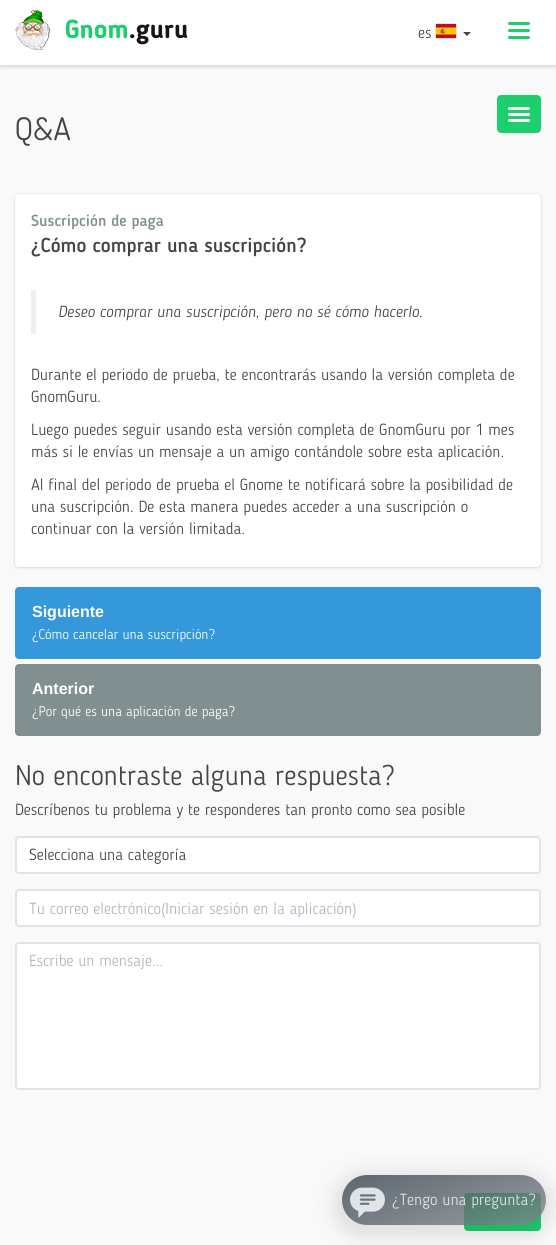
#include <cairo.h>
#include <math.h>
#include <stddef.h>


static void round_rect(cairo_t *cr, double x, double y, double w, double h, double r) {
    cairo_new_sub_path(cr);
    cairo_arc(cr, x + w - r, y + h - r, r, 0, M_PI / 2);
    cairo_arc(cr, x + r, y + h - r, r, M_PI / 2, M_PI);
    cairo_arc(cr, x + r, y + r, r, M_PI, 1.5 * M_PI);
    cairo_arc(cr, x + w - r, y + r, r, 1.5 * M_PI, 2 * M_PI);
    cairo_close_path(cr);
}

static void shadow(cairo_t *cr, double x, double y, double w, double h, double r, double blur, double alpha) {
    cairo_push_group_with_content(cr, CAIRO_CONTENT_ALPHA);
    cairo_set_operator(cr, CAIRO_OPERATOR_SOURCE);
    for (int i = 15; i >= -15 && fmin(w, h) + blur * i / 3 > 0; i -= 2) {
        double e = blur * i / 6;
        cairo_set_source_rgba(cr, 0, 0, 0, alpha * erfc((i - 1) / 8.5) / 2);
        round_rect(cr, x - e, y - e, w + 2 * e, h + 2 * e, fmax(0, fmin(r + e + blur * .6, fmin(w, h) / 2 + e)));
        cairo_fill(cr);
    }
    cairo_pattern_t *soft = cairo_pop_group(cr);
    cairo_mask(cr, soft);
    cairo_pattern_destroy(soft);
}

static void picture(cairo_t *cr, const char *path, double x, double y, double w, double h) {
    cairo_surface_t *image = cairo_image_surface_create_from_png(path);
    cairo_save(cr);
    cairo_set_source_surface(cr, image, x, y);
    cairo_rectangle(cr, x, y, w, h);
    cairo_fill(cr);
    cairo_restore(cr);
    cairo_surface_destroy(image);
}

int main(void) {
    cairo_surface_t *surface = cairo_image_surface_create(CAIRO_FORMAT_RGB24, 556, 1245);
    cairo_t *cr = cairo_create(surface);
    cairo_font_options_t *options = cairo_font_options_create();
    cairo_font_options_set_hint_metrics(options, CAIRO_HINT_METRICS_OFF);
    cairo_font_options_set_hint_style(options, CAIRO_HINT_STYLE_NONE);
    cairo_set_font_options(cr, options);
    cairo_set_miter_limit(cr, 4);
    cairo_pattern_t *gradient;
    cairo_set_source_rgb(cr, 0.976, 0.976, 0.976);
    cairo_paint(cr);
    cairo_set_source_rgb(cr, 0, 0, 0);
    shadow(cr, 0, 1, 556, 65, 0, 2.5, 0.2);
    cairo_set_source_rgb(cr, 1, 1, 1);
    cairo_rectangle(cr, 0, 0, 556, 65);
    cairo_fill(cr);
    picture(cr, "img1.png", 15, 10, 36, 40);
    picture(cr, "img2.png", 65, 19, 123, 26);
    cairo_select_font_face(cr, "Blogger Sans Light", CAIRO_FONT_SLANT_NORMAL, CAIRO_FONT_WEIGHT_NORMAL);
    cairo_set_font_size(cr, 16);
    cairo_set_source_rgb(cr, 0.267, 0.267, 0.267);
    cairo_move_to(cr, 418, 38);
    cairo_show_text(cr, "es");
    cairo_set_source_rgb(cr, 0.533, 0.533, 0.533);
    shadow(cr, 436, 24, 20, 14, 0, 0.5, 1);
    picture(cr, "img3.png", 436, 24, 20, 14);
    cairo_set_source_rgb(cr, 0.267, 0.267, 0.267);
    cairo_new_path(cr);
    cairo_move_to(cr, 463, 32);
    cairo_line_to(cr, 471, 32);
    cairo_line_to(cr, 467, 36);
    cairo_close_path(cr);
    cairo_fill(cr);
    cairo_set_source_rgb(cr, 0.114, 0.808, 0.427);
    round_rect(cr, 508, 22, 22, 3, 1.5);
    cairo_fill(cr);
    round_rect(cr, 508, 29, 22, 3, 1.5);
    cairo_fill(cr);
    round_rect(cr, 508, 36, 22, 3, 1.5);
    cairo_fill(cr);
    cairo_set_font_size(cr, 32);
    cairo_set_source_rgb(cr, 0.267, 0.267, 0.267);
    cairo_move_to(cr, 15, 140);
    cairo_show_text(cr, "Q&A");
    cairo_set_source_rgb(cr, 0.114, 0.808, 0.427);
    round_rect(cr, 498, 96, 42, 36, 3);
    cairo_fill_preserve(cr);
    cairo_stroke(cr);
    cairo_set_source_rgb(cr, 1, 1, 1);
    round_rect(cr, 508, 107, 22, 3, 1.5);
    cairo_fill(cr);
    round_rect(cr, 508, 113, 22, 3, 1.5);
    cairo_fill(cr);
    round_rect(cr, 508, 119, 22, 3, 1.5);
    cairo_fill(cr);
    cairo_set_source_rgb(cr, 0.761, 0.804, 0.839);
    shadow(cr, 15, 195, 526, 373, 4, 1.5, 0.5);
    cairo_set_source_rgb(cr, 0, 0, 0);
    shadow(cr, 15, 194, 526, 373, 4, 0.5, 0.15);
    cairo_set_source_rgb(cr, 1, 1, 1);
    round_rect(cr, 15.5, 194.5, 525, 372, 3.5);
    cairo_fill_preserve(cr);
    cairo_set_line_width(cr, 1);
    cairo_stroke(cr);
    cairo_select_font_face(cr, "Blogger Sans Medium", CAIRO_FONT_SLANT_NORMAL, CAIRO_FONT_WEIGHT_NORMAL);
    cairo_set_font_size(cr, 16);
    cairo_set_source_rgb(cr, 0.506, 0.561, 0.565);
    cairo_move_to(cr, 31, 226);
    cairo_show_text(cr, "Suscripción de paga");
    cairo_set_font_size(cr, 20);
    cairo_set_source_rgb(cr, 0.267, 0.267, 0.267);
    cairo_move_to(cr, 31, 252);
    cairo_show_text(cr, "¿Cómo comprar una suscripción?");
    cairo_set_source_rgb(cr, 0.925, 0.941, 0.945);
    cairo_rectangle(cr, 31, 290, 5, 44);
    cairo_fill(cr);
    cairo_select_font_face(cr, "Blogger Sans Light", CAIRO_FONT_SLANT_ITALIC, CAIRO_FONT_WEIGHT_NORMAL);
    cairo_set_font_size(cr, 16);
    cairo_set_source_rgb(cr, 0.267, 0.267, 0.267);
    cairo_move_to(cr, 58, 317);
    cairo_show_text(cr, "Deseo comprar una suscripción, pero no sé cómo hacerlo.");
    cairo_select_font_face(cr, "Blogger Sans Light", CAIRO_FONT_SLANT_NORMAL, CAIRO_FONT_WEIGHT_NORMAL);
    cairo_move_to(cr, 31, 380);
    cairo_show_text(cr, "Durante el periodo de prueba, te encontrarás usando la versión completa de");
    cairo_move_to(cr, 31, 402);
    cairo_show_text(cr, "GnomGuru.");
    cairo_move_to(cr, 31, 435);
    cairo_show_text(cr, "Luego puedes seguir usando esta versión completa de GnomGuru por 1 mes");
    cairo_move_to(cr, 31, 457);
    cairo_show_text(cr, "más si le envías un mensaje a un amigo contándole sobre esta aplicación.");
    cairo_move_to(cr, 31, 490);
    cairo_show_text(cr, "Al final del periodo de prueba el Gnome te notificará sobre la posibilidad de");
    cairo_move_to(cr, 31, 512);
    cairo_show_text(cr, "una suscripción. De esta manera puedes acceder a una suscripción o");
    cairo_move_to(cr, 31, 534);
    cairo_show_text(cr, "continuar con la versión limitada.");
    cairo_set_source_rgb(cr, 0.204, 0.596, 0.859);
    round_rect(cr, 16, 588, 524, 70, 3);
    cairo_fill_preserve(cr);
    cairo_set_line_width(cr, 2);
    cairo_stroke(cr);
    cairo_select_font_face(cr, "Liberation Sans", CAIRO_FONT_SLANT_NORMAL, CAIRO_FONT_WEIGHT_BOLD);
    cairo_set_source_rgb(cr, 1, 1, 1);
    cairo_move_to(cr, 32, 617);
    cairo_show_text(cr, "Siguiente");
    cairo_select_font_face(cr, "Blogger Sans Light", CAIRO_FONT_SLANT_NORMAL, CAIRO_FONT_WEIGHT_NORMAL);
    cairo_set_font_size(cr, 13.9);
    cairo_move_to(cr, 32, 639);
    cairo_show_text(cr, "¿Cómo cancelar una suscripción?");
    cairo_set_source_rgb(cr, 0.506, 0.561, 0.565);
    round_rect(cr, 16, 665, 524, 70, 3);
    cairo_fill_preserve(cr);
    cairo_stroke(cr);
    cairo_select_font_face(cr, "Liberation Sans", CAIRO_FONT_SLANT_NORMAL, CAIRO_FONT_WEIGHT_BOLD);
    cairo_set_font_size(cr, 16);
    cairo_set_source_rgb(cr, 1, 1, 1);
    cairo_move_to(cr, 32, 694);
    cairo_show_text(cr, "Anterior");
    cairo_select_font_face(cr, "Blogger Sans Light", CAIRO_FONT_SLANT_NORMAL, CAIRO_FONT_WEIGHT_NORMAL);
    cairo_set_font_size(cr, 13.9);
    cairo_move_to(cr, 32, 716);
    cairo_show_text(cr, "¿Por qué es una aplicación de paga?");
    cairo_set_font_size(cr, 28);
    cairo_set_source_rgb(cr, 0.267, 0.267, 0.267);
    cairo_move_to(cr, 15, 785);
    cairo_show_text(cr, "No encontraste alguna respuesta?");
    cairo_set_font_size(cr, 16);
    cairo_move_to(cr, 15, 815);
    cairo_show_text(cr, "Descríbenos tu problema y te responderes tan pronto como sea posible");
    cairo_set_source_rgb(cr, 1, 1, 1);
    round_rect(cr, 16, 837, 524, 36, 3);
    cairo_fill_preserve(cr);
    cairo_set_source_rgb(cr, 0.863, 0.894, 0.925);
    cairo_stroke(cr);
    cairo_set_source_rgb(cr, 0.267, 0.267, 0.267);
    cairo_move_to(cr, 29, 860);
    cairo_show_text(cr, "Selecciona una categoría");
    cairo_set_source_rgb(cr, 1, 1, 1);
    round_rect(cr, 16, 890, 524, 36, 3);
    cairo_fill_preserve(cr);
    cairo_set_source_rgb(cr, 0.863, 0.894, 0.925);
    cairo_stroke(cr);
    cairo_set_source_rgb(cr, 0.675, 0.714, 0.753);
    cairo_move_to(cr, 29, 914);
    cairo_show_text(cr, "Tu correo electrónico(Iniciar sesión en la aplicación)");
    cairo_set_source_rgb(cr, 1, 1, 1);
    round_rect(cr, 16, 943, 524, 146, 3);
    cairo_fill_preserve(cr);
    cairo_set_source_rgb(cr, 0.863, 0.894, 0.925);
    cairo_stroke(cr);
    cairo_set_source_rgb(cr, 0.675, 0.714, 0.753);
    cairo_move_to(cr, 29, 966);
    cairo_show_text(cr, "Escribe un mensaje...");
    cairo_set_source_rgb(cr, 0.114, 0.808, 0.427);
    round_rect(cr, 465, 1194, 75, 36, 3);
    cairo_fill_preserve(cr);
    cairo_stroke(cr);
    cairo_save(cr);
    cairo_set_fill_rule(cr, CAIRO_FILL_RULE_EVEN_ODD);
    cairo_new_path(cr);
    cairo_move_to(cr, 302, 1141);
    cairo_line_to(cr, 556, 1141);
    cairo_line_to(cr, 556, 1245);
    cairo_line_to(cr, 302, 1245);
    cairo_close_path(cr);
    cairo_move_to(cr, 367, 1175);
    cairo_line_to(cr, 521, 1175);
    cairo_curve_to(cr, 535, 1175, 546, 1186, 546, 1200);
    cairo_curve_to(cr, 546, 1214, 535, 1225, 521, 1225);
    cairo_line_to(cr, 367, 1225);
    cairo_curve_to(cr, 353, 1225, 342, 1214, 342, 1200);
    cairo_curve_to(cr, 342, 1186, 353, 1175, 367, 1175);
    cairo_close_path(cr);
    cairo_clip(cr);
    cairo_set_source_rgb(cr, 0, 0, 0);
    shadow(cr, 336, 1175, 214, 60, 30, 11, 0.12);
    cairo_restore(cr);
    gradient = cairo_pattern_create_linear(425, 1146, 463, 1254);
    cairo_pattern_add_color_stop_rgba(gradient, 0, 0.216, 0.259, 0.306, 0.8);
    cairo_pattern_add_color_stop_rgba(gradient, 1, 0.49, 0.518, 0.545, 0.8);
    cairo_set_source(cr, gradient);
    cairo_pattern_destroy(gradient);
    round_rect(cr, 342, 1175, 204, 50, 25);
    cairo_fill(cr);
    picture(cr, "img4.png", 350, 1187, 35, 31);
    cairo_set_source_rgb(cr, 0.882, 0.902, 0.898);
    cairo_move_to(cr, 392, 1205);
    cairo_show_text(cr, "¿Tengo una pregunta?");
    cairo_surface_write_to_png(surface, "page.png");
    cairo_font_options_destroy(options);
    cairo_destroy(cr);
    cairo_surface_destroy(surface);
    return 0;
}
